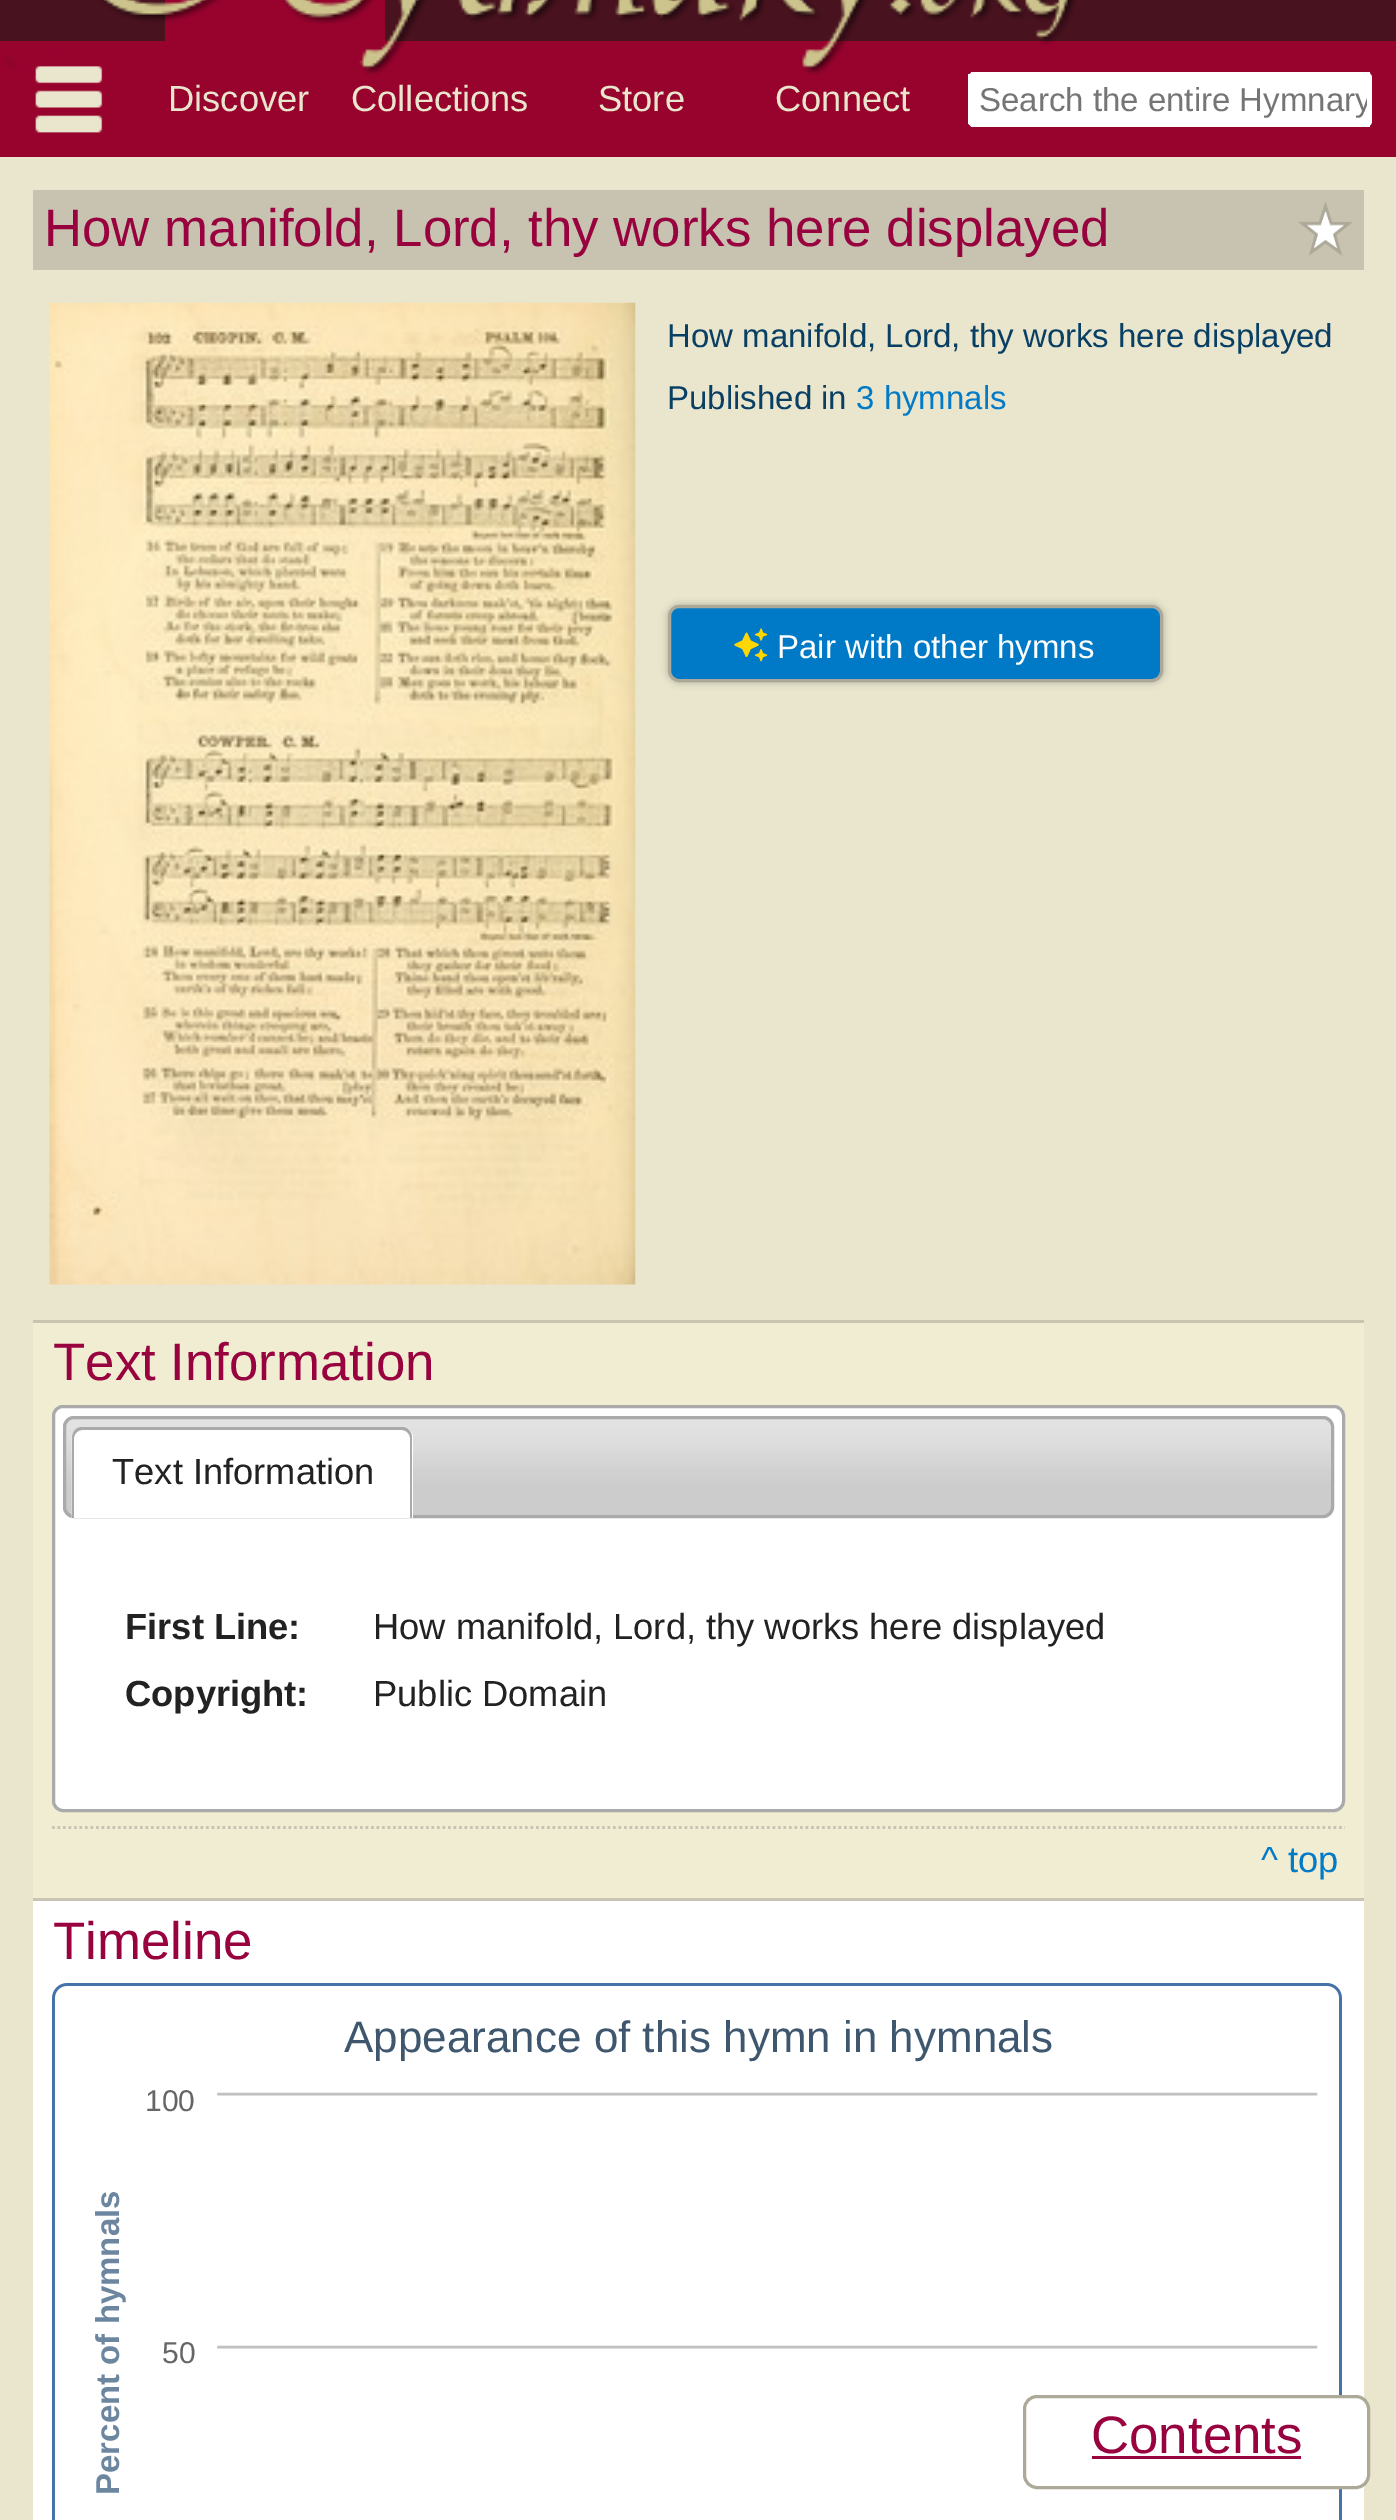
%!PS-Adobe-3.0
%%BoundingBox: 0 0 1396 2520
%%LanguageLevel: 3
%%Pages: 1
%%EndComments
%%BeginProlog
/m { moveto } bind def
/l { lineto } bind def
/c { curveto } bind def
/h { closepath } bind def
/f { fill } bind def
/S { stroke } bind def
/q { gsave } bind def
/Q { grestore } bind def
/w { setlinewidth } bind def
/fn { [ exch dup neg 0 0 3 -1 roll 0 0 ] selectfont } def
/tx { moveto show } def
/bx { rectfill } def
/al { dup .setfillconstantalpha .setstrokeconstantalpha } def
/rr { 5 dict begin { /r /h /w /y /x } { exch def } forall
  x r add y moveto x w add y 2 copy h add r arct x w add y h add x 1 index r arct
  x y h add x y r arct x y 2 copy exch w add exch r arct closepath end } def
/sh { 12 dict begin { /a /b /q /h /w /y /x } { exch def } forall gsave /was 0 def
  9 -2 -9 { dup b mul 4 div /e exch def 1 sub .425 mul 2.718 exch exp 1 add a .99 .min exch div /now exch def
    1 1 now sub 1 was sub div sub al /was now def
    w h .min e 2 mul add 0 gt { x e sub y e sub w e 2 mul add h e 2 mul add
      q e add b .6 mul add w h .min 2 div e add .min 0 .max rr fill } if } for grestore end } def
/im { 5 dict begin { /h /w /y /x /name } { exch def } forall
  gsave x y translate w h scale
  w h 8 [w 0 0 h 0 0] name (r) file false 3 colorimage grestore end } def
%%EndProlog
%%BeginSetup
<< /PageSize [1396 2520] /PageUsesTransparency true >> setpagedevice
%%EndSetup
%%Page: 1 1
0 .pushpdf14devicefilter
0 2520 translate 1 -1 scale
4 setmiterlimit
0.286 0.071 0.122 setrgbcolor
0 0 1396 2520 bx
0.596 0.012 0.18 setrgbcolor
165 0 220 41 bx
0 41 1396 116 bx
1 setgray
968 72 404 55 6 rr f
971 72 399 2 bx
968 74 2 50 bx
(image0.raw) 3 0 1073 75 im
(image1.raw) 35 66 68 67 im
/LiberationSans-Regular 36.3 fn
0.914 0.902 0.804 setrgbcolor
(Discover) 168 111 tx
(Collections) 351 111 tx
(Store) 598 111 tx
(Connect) 775 111 tx
1 setgray
971 125 399 2 bx
q
979 80 388 38 rectclip
/LiberationSans-Regular 33 fn
0.459 setgray
(Search the entire Hymnary) 979 111 tx
Q
0.914 0.902 0.804 setrgbcolor
0 157 1396 2363 bx
0.784 0.765 0.69 setrgbcolor
33 190 1331 80 bx
/LiberationSans-Regular 52.8 fn
0.596 0.008 0.243 setrgbcolor
(How manifold, Lord, thy works here displayed) 44 246 tx
(image2.raw) 1298 202 55 54 im
(image3.raw) 49 302 587 983 im
/LiberationSans-Regular 33 fn
0.039 0.247 0.392 setrgbcolor
(How manifold, Lord, thy works here displayed) 667 347 tx
(Published in) 667 409 tx
0.008 0.478 0.776 setrgbcolor
(3 hymnals) 856 409 tx
0.678 0.663 0.6 setrgbcolor
668 605 495 77 11 4 1 sh
0 0.478 0.776 setrgbcolor
669.5 606.5 492 74 9.5 rr q f Q
0.678 0.663 0.6 setrgbcolor
3 w
S
(image4.raw) 734 628 34 34 im
1 setgray
(Pair with other hymns) 777 658 tx
0.941 0.929 0.827 setrgbcolor
33 1323 1331 575 bx
0.788 0.769 0.694 setrgbcolor
33 1320 1331 3 bx
/LiberationSans-Regular 52.8 fn
0.596 0.008 0.243 setrgbcolor
(Text Information) 53 1380 tx
1 setgray
53.5 1406.5 1290 404 9.5 rr q f Q
0.667 setgray
S
(image5.raw) 63 1416 1271 102 im
64.5 1417.5 1268 99 9.5 rr S
1 setgray
83 1427 m 402 1427 l 408 1427 413 1432 413 1438 c 413 1518 l 72 1518 l 72 1438 l 72 1432 77 1427 83 1427 c h f
(image6.raw) 71 1428 7 90 im
0.667 setgray
82 1427 m 402 1427 l 408 1427 412 1432 412 1438 c 412 1518 l 72 1518 l 72 1438 l 72 1432 76 1427 82 1427 c h 82 1430 m 402 1430 l 406 1430 410 1434 410 1438 c 410 1518 l 74 1518 l 74 1438 l 74 1434 78 1430 82 1430 c h eofill
/LiberationSans-Regular 36.3 fn
0.133 setgray
(Text Information) 112 1484 tx
/LiberationSans-Bold 36.3 fn
(First Line:) 125 1639 tx
/LiberationSans-Regular 36.3 fn
(How manifold, Lord, thy works here displayed) 373 1639 tx
/LiberationSans-Bold 36.3 fn
(Copyright:) 125 1706 tx
/LiberationSans-Regular 36.3 fn
(Public Domain) 373 1706 tx
0.788 0.769 0.694 setrgbcolor
2.8 w
[2.75 2.75] 0 setdash
52 1827.5 m 1345 1827.5 l S
0.008 0.478 0.776 setrgbcolor
(^ top) 1261 1872 tx
1 setgray
33 1901 1331 619 bx
0.788 0.769 0.694 setrgbcolor
33 1898 1331 3 bx
/LiberationSans-Regular 52.8 fn
0.596 0.008 0.243 setrgbcolor
(Timeline) 53 1959 tx
(image7.raw) 52 1983 1290 537 im
/LiberationSans-Regular 44 fn
0.243 0.341 0.435 setrgbcolor
(Appearance of this hymn in hymnals) 344 2052 tx
/LiberationSans-Regular 30 fn
0.4 setgray
(100) 145 2111 tx
/LiberationSans-Bold 33 fn
0.427 0.525 0.624 setrgbcolor
q 119 2495 translate -90 rotate 0 0 m (Percent of hymnals) show Q
/LiberationSans-Regular 30 fn
0.4 setgray
(50) 162 2363 tx
1 setgray
1024.5 2396.5 344 91 12.5 rr q f Q
0.678 0.663 0.6 setrgbcolor
3 w
[] 0 setdash
S
/LiberationSans-Regular 52.8 fn
0.596 0.008 0.243 setrgbcolor
(Contents) 1091 2453 tx
1092 2456 209 3 bx
.poppdf14devicefilter showpage
%%EOF
